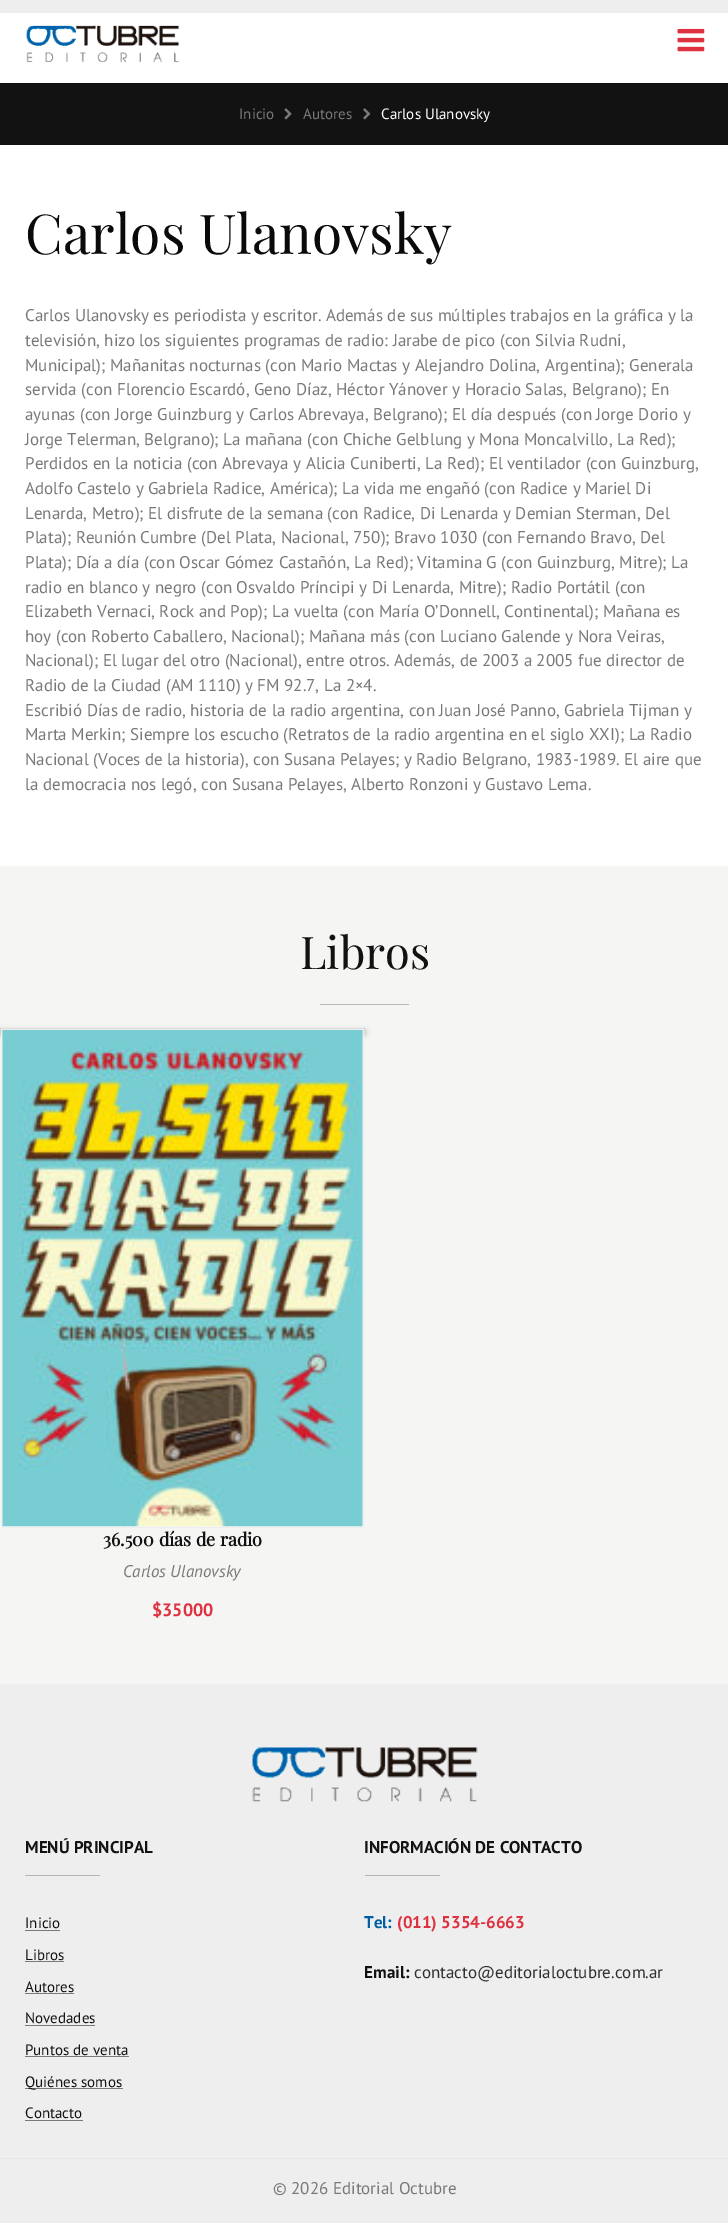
%!PS-Adobe-3.0
%%BoundingBox: 0 0 728 2228
%%LanguageLevel: 3
%%Pages: 1
%%EndComments
%%BeginProlog
/fn { [ exch dup neg 0 0 3 -1 roll 0 0 ] selectfont } def
/tx { moveto show } def
/bx { rectfill } def
/al { dup .setfillconstantalpha .setstrokeconstantalpha } def
/rr { 5 dict begin { /r /h /w /y /x } { exch def } forall
  x r add y moveto x w add y 2 copy h add r arct x w add y h add x 1 index r arct
  x y h add x y r arct x y 2 copy exch w add exch r arct closepath end } def
/sh { 12 dict begin { /a /b /q /h /w /y /x } { exch def } forall gsave /was 0 def
  9 -2 -9 { dup b mul 4 div /e exch def 1 sub .425 mul 2.718 exch exp 1 add a .99 .min exch div /now exch def
    1 1 now sub 1 was sub div sub al /was now def
    w h .min e 2 mul add 0 gt { x e sub y e sub w e 2 mul add h e 2 mul add
      q e add b .6 mul add w h .min 2 div e add .min 0 .max rr fill } if } for grestore end } def
/im { 5 dict begin { /h /w /y /x /name } { exch def } forall
  gsave x y translate w h scale
  w h 8 [w 0 0 h 0 0] name (r) file false 3 colorimage grestore end } def
%%EndProlog
%%BeginSetup
<< /PageSize [728 2228] /PageUsesTransparency true >> setpagedevice
%%EndSetup
%%Page: 1 1
0 .pushpdf14devicefilter
0 2228 translate 1 -1 scale
4 setmiterlimit
1 setgray
0 0 728 2228 bx
0.933 setgray
0 0 728 13 bx
(image0.raw) 26 25 154 38 im
(image1.raw) 677 28 28 24 im
0.071 setgray
0 83 728 62 bx
/PTSans-Regular 15 fn
0.475 setgray
(Inicio) 239 119 tx
(image2.raw) 284 108 8 12 im
(Autores) 303 119 tx
(image3.raw) 363 108 8 12 im
1 setgray
(Carlos Ulanovsky) 381 119 tx
/PlayfairDisplay-Regular 55 fn
0.039 setgray
(Carlos Ulanovsky) 25 254 tx
/PTSans-Regular 17 fn
0.475 setgray
(Carlos Ulanovsky es periodista y escritor. Además de sus múltiples trabajos en la gráfica y la) 25 321 tx
(televisión, hizo los siguientes programas de radio: Jarabe de pico \(con Silvia Rudni,) 25 346 tx
(Municipal\); Mañanitas nocturnas \(con Mario Mactas y Alejandro Dolina, Argentina\); Generala) 25 371 tx
(servida \(con Florencio Escardó, Geno Díaz, Héctor Yánover y Horacio Salas, Belgrano\); En) 25 395 tx
(ayunas \(con Jorge Guinzburg y Carlos Abrevaya, Belgrano\); El día después \(con Jorge Dorio y) 25 420 tx
(Jorge Telerman, Belgrano\); La mañana \(con Chiche Gelblung y Mona Moncalvillo, La Red\);) 25 445 tx
(Perdidos en la noticia \(con Abrevaya y Alicia Cuniberti, La Red\); El ventilador \(con Guinzburg,) 25 469 tx
(Adolfo Castelo y Gabriela Radice, América\); La vida me engañó \(con Radice y Mariel Di) 25 494 tx
(Lenarda, Metro\); El disfrute de la semana \(con Radice, Di Lenarda y Demian Sterman, Del) 25 519 tx
(Plata\); Reunión Cumbre \(Del Plata, Nacional, 750\); Bravo 1030 \(con Fernando Bravo, Del) 25 543 tx
(Plata\); Día a día \(con Oscar Gómez Castañón, La Red\); Vitamina G \(con Guinzburg, Mitre\); La) 25 568 tx
(radio en blanco y negro \(con Osvaldo Príncipi y Di Lenarda, Mitre\); Radio Portátil \(con) 25 593 tx
(Elizabeth Vernaci, Rock and Pop\); La vuelta \(con María O’Donnell, Continental\); Mañana es) 25 617 tx
(hoy \(con Roberto Caballero, Nacional\); Mañana más \(con Luciano Galende y Nora Veiras,) 25 642 tx
(Nacional\); El lugar del otro \(Nacional\), entre otros. Además, de 2003 a 2005 fue director de) 25 666 tx
(Radio de la Ciudad \(AM 1110\) y FM 92.7, La 2×4.) 25 691 tx
(Escribió Días de radio, historia de la radio argentina, con Juan José Panno, Gabriela Tijman y) 25 716 tx
(Marta Merkin; Siempre los escucho \(Retratos de la radio argentina en el siglo XXI\); La Radio) 25 740 tx
(Nacional \(Voces de la historia\), con Susana Pelayes; y Radio Belgrano, 1983-1989. El aire que) 25 765 tx
(la democracia nos legó, con Susana Pelayes, Alberto Ronzoni y Gustavo Lema.) 25 790 tx
0.961 0.961 0.957 setrgbcolor
0 866 728 818 bx
/PlayfairDisplay-Regular 45 fn
0.071 setgray
(Libros) 300 969 tx
0.718 setgray
320 1004 89 1 bx
0.678 0.678 0.671 setrgbcolor
0 1031 365 3 0 3 1 sh
0.867 setgray
0 1028 365 1 bx
0.808 setgray
364 1028 1 3 bx
0 1028 1 3 bx
0.933 setgray
1.5 1029.5 362 498 rectstroke
(image4.raw) 2 1030 361 497 im
/PlayfairDisplay-Bold 18 fn
0.071 setgray
(36.500 días de radio) 103 1546 tx
/PTSans-Italic 17 fn
0.475 setgray
(Carlos Ulanovsky) 123 1577 tx
/PTSans-Bold 18 fn
0.871 0.196 0.255 setrgbcolor
($35000) 152 1616 tx
0.933 setgray
0 1684 728 539 bx
(image5.raw) 252 1747 226 55 im
/PTSans-Bold 17 fn
0.071 setgray
(MENÚ PRINCIPAL) 25 1853 tx
0.706 setgray
25 1875 75 1 bx
/PTSans-Regular 15 fn
0.071 setgray
(Inicio) 25 1928 tx
0.475 setgray
25 1930 35 1 bx
0.071 setgray
(Libros) 25 1960 tx
0.475 setgray
25 1961 39 1 bx
0.071 setgray
(Autores) 25 1992 tx
0.475 setgray
25 1993 49 1 bx
0.071 setgray
(Novedades) 25 2023 tx
0.475 setgray
25 2025 70 1 bx
0.071 setgray
(Puntos de venta) 25 2055 tx
0.475 setgray
25 2056 104 1 bx
25 2088 98 1 bx
0.071 setgray
(Quiénes somos) 25 2087 tx
(Contacto) 25 2118 tx
0.475 setgray
25 2120 58 1 bx
/PTSans-Bold 17 fn
0.071 setgray
(INFORMACIÓN DE CONTACTO) 364 1853 tx
0.706 setgray
365 1875 75 1 bx
0 0.369 0.647 setrgbcolor
(Tel:) 364 1928 tx
0.871 0.196 0.255 setrgbcolor
(\(011\) 5354-6663) 397 1928 tx
0.071 setgray
(Email:) 364 1978 tx
/PTSans-Regular 17 fn
0.188 setgray
(contacto@editorialoctubre.com.ar) 414 1978 tx
0.894 0.906 0.91 setrgbcolor
0 2158 728 1 bx
0.475 setgray
(© 2026 Editorial Octubre) 273 2194 tx
.poppdf14devicefilter showpage
%%EOF
